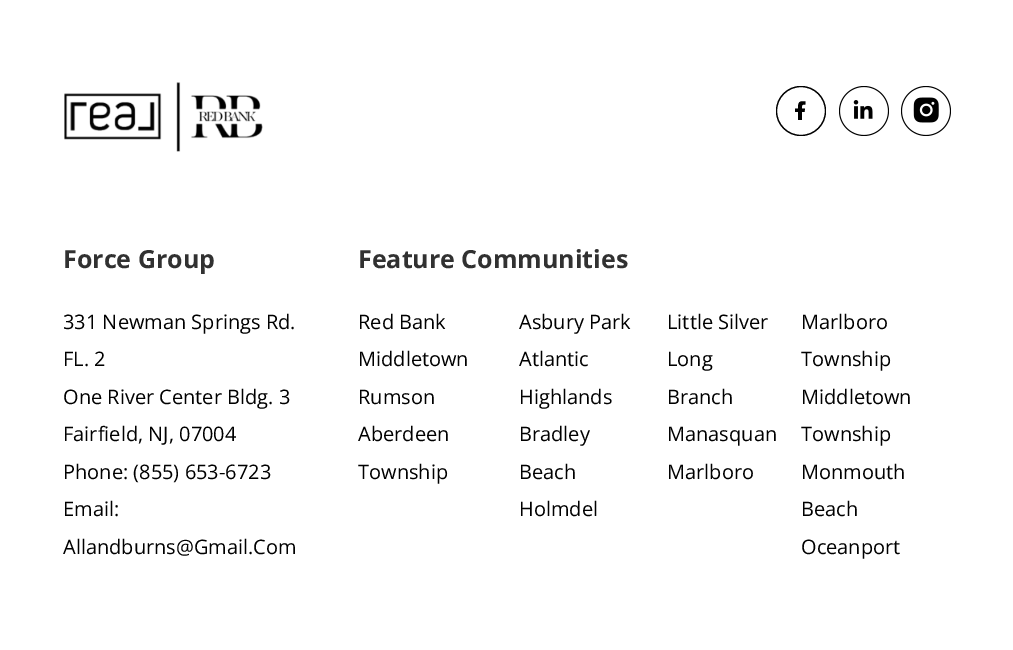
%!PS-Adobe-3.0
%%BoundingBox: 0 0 1013 650
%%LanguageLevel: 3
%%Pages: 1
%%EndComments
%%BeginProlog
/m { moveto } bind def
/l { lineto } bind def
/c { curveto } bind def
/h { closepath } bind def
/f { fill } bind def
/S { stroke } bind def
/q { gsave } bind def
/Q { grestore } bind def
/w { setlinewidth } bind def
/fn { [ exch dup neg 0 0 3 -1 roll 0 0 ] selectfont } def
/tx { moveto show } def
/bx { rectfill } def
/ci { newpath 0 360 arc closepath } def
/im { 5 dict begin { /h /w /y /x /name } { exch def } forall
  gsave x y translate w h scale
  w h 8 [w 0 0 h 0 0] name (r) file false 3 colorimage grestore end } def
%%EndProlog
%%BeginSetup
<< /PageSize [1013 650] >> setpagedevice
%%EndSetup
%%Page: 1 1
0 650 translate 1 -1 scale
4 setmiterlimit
1 setgray
0 0 1013 650 bx
(image0.raw) 64 82 199 70 im
q
776 86 50 50 rectclip
0 setgray
1.2 w
801 111 24.5 ci S
Q
0 setgray
804.5 112 m 805 108.5 l 802 108.5 l 802 105 801.5 104.5 805.5 104.5 c 805.5 101.5 l 799 100.5 798 102.5 798 108.5 c 795 108.5 l 795 112 l 798 112 l 798 120 l 802 120 l 802 112 l h f
(image1.raw) 839 86 50 50 im
(image2.raw) 901 86 50 50 im
/OpenSans-Bold 25 fn
0.192 setgray
(Force Group) 63 268 tx
/OpenSans-Regular 20 fn
0 setgray
(331 Newman Springs Rd.) 63 329 tx
(FL. 2) 63 366 tx
(One River Center Bldg. 3) 63 404 tx
(Fairfield, NJ, 07004) 63 441 tx
(Phone: \(855\) 653-6723) 63 479 tx
(Email:) 63 516 tx
(Allandburns@Gmail.Com) 63 554 tx
/OpenSans-Bold 25 fn
0.192 setgray
(Feature Communities) 358 268 tx
/OpenSans-Regular 20 fn
0 setgray
(Red Bank) 358 329 tx
(Middletown) 358 366 tx
(Rumson) 358 404 tx
(Aberdeen) 358 441 tx
(Township) 358 479 tx
(Asbury Park) 519 329 tx
(Atlantic) 519 366 tx
(Highlands) 519 404 tx
(Bradley) 519 441 tx
(Beach) 519 479 tx
(Holmdel) 519 516 tx
(Little Silver) 667 329 tx
(Long) 667 366 tx
(Branch) 667 404 tx
(Manasquan) 667 441 tx
(Marlboro) 667 479 tx
(Marlboro) 801 329 tx
(Township) 801 366 tx
(Middletown) 801 404 tx
(Township) 801 441 tx
(Monmouth) 801 479 tx
(Beach) 801 516 tx
(Oceanport) 801 554 tx
showpage
%%EOF
